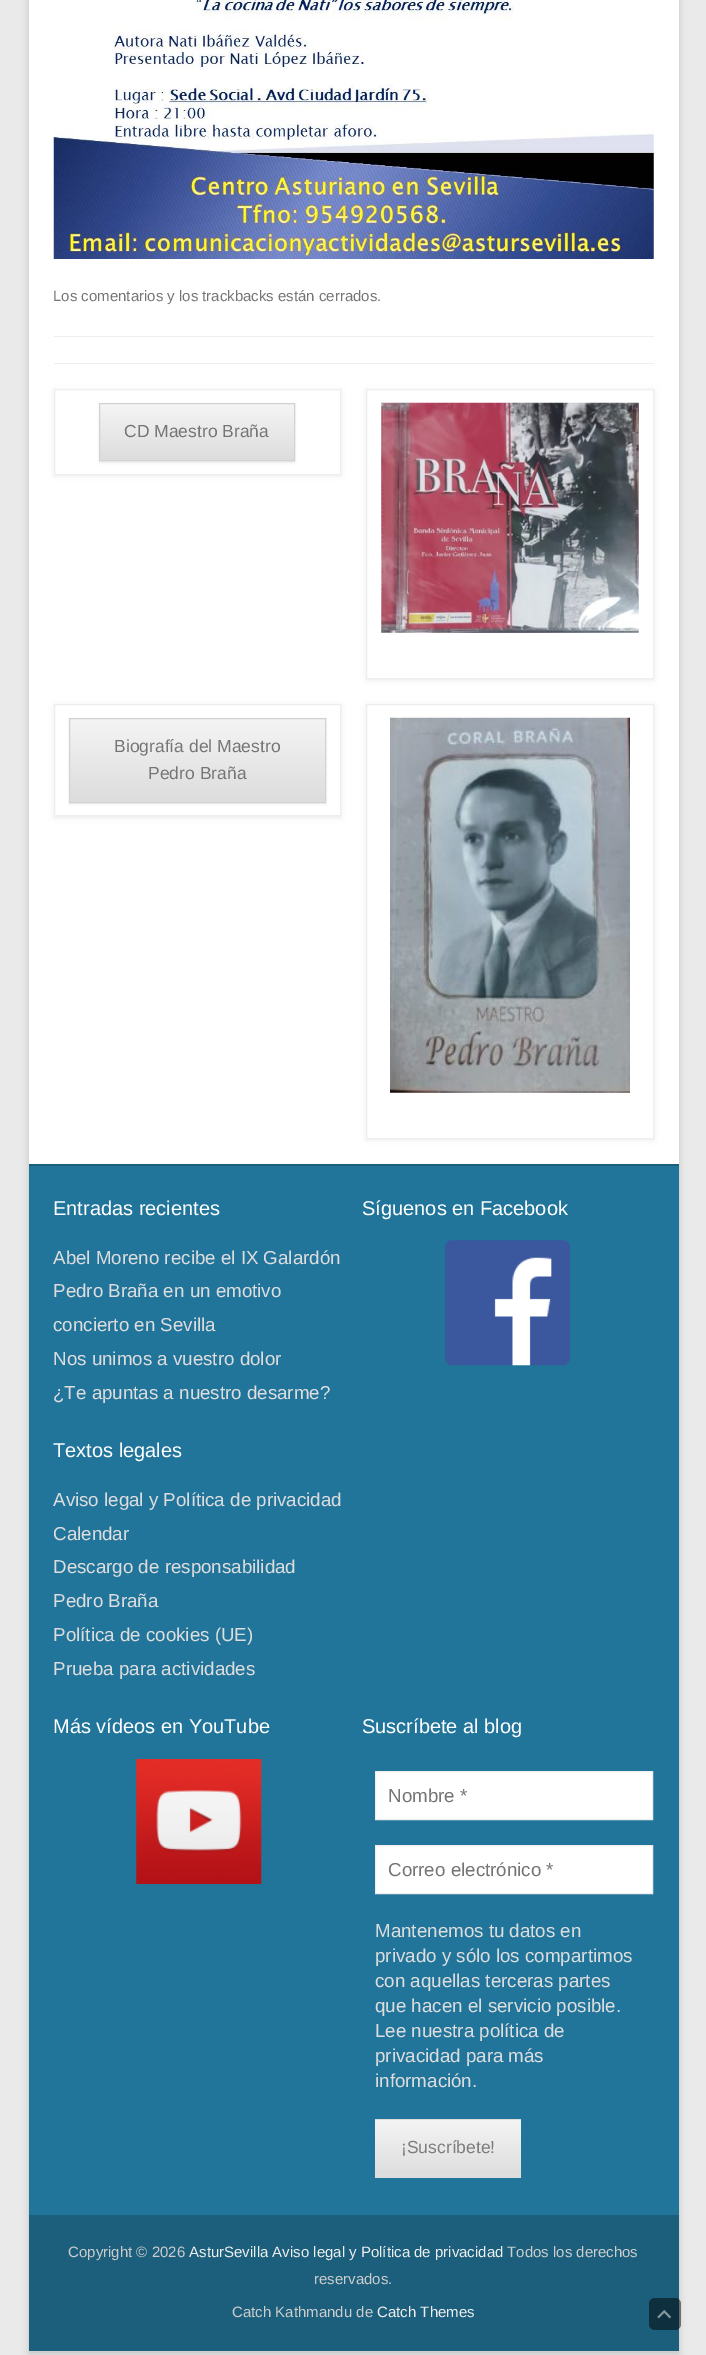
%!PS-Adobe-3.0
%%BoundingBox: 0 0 706 2355
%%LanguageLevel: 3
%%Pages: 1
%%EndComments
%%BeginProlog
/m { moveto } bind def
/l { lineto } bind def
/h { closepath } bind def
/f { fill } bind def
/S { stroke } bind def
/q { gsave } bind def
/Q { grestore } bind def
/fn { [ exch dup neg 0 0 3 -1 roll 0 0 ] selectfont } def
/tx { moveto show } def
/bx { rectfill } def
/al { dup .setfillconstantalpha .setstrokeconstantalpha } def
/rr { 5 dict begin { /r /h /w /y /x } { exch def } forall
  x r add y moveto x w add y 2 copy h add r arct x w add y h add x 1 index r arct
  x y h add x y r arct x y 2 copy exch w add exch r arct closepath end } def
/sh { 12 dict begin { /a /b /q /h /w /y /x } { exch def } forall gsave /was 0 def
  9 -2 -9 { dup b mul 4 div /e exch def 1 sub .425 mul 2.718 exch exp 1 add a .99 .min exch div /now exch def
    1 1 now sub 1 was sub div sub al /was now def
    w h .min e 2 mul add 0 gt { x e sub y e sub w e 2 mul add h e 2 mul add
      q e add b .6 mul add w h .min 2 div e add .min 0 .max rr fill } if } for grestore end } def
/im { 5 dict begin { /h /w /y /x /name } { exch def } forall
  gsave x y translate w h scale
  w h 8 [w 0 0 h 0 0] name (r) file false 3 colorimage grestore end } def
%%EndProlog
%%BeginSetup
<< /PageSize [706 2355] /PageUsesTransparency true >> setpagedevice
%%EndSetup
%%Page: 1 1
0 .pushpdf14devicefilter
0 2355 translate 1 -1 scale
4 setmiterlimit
0.918 setgray
0 0 706 2355 bx
0.392 setgray
29 -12 650 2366 0 4 0.3 sh
1 setgray
29 0 650 1164 bx
0.933 setgray
54 363 600 1 bx
54 336 600 1 bx
(image0.raw) 53 0 601 259 im
/LiberationSans-Regular 15 fn
0.459 setgray
(Los comentarios y los trackbacks están cerrados.) 53 301 tx
q
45 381 m 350 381 l 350 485 l 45 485 l h 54 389 m 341 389 l 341 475 l 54 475 l h eoclip newpath
0 setgray
54 390 287 86 0 2.5 0.07 sh
Q
0.933 setgray
54.5 389.5 286 85 rectstroke
0.251 setgray
99 404 196 59 0 1 0.1 sh
q 100 405 m 294 405 l 294 460 l 100 460 l h clip newpath
<< /ShadingType 2 /ColorSpace /DeviceRGB /Coords [197 404 197 460] /Extend [true true] /Function << /FunctionType 2 /Domain [0 1] /C0 [0.957 0.957 0.957] /C1 [0.867 0.867 0.867] /N 1 >> >> shfill Q
0.824 setgray
99.5 403.5 195 57 rectstroke
/LiberationSans-Regular 17.5 fn
0.459 setgray
(CD Maestro Braña) 124 437 tx
q
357 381 m 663 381 l 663 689 l 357 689 l h 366 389 m 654 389 l 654 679 l 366 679 l h eoclip newpath
0 setgray
366 390 288 290 0 2.5 0.07 sh
Q
0.933 setgray
366.5 389.5 287 289 rectstroke
(image1.raw) 381 402 258 231 im
q
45 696 m 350 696 l 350 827 l 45 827 l h 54 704 m 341 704 l 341 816 l 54 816 l h eoclip newpath
0 setgray
54 705 287 113 0 2.5 0.07 sh
Q
54.5 704.5 286 111 rectstroke
0.251 setgray
69 719 257 85 0 1 0.1 sh
0.867 setgray
70 801 255 1 bx
q 70 720 m 325 720 l 325 801 l 70 801 l h clip newpath
<< /ShadingType 2 /ColorSpace /DeviceRGB /Coords [198 719 198 801] /Extend [true true] /Function << /FunctionType 2 /Domain [0 1] /C0 [0.957 0.957 0.957] /C1 [0.867 0.867 0.867] /N 1 >> >> shfill Q
0.824 setgray
69.5 718.5 256 84 rectstroke
0.459 setgray
(Biografía del Maestro) 114 752 tx
(Pedro Braña) 148 779 tx
q
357 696 m 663 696 l 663 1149 l 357 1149 l h 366 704 m 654 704 l 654 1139 l 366 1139 l h eoclip newpath
0 setgray
366 705 288 435 0 2.5 0.07 sh
Q
0.933 setgray
366.5 704.5 287 434 rectstroke
(image2.raw) 390 717 240 376 im
0.106 0.373 0.49 setrgbcolor
29 1164 650 2 bx
0.129 0.459 0.608 setrgbcolor
29 1166 650 1049 bx
/LiberationSans-Regular 20 fn
1 setgray
(Entradas recientes) 53 1215 tx
/LiberationSans-Regular 18.75 fn
0.867 setgray
(Abel Moreno recibe el IX Galardón) 53 1264 tx
(Pedro Braña en un emotivo) 53 1297 tx
(concierto en Sevilla) 53 1331 tx
(Nos unimos a vuestro dolor) 53 1365 tx
(¿Te apuntas a nuestro desarme?) 53 1399 tx
/LiberationSans-Regular 20 fn
1 setgray
(Textos legales) 53 1457 tx
/LiberationSans-Regular 18.75 fn
0.867 setgray
(Aviso legal y Política de privacidad) 53 1506 tx
(Calendar) 53 1540 tx
(Descargo de responsabilidad) 53 1573 tx
(Pedro Braña) 53 1607 tx
(Política de cookies \(UE\)) 53 1641 tx
(Prueba para actividades) 53 1675 tx
/LiberationSans-Regular 20 fn
1 setgray
(Síguenos en Facebook) 362 1215 tx
(image3.raw) 445 1240 125 126 im
(Más vídeos en YouTube) 53 1733 tx
(image4.raw) 136 1759 126 125 im
(Suscríbete al blog) 362 1733 tx
375.5 1771.5 m 652.5 1771.5 l 652.5 1819.5 l 375.5 1819.5 l h q f Q
0.933 setgray
S
/LiberationSans-Regular 18.75 fn
0.459 setgray
(Nombre *) 388 1802 tx
1 setgray
375.5 1845.5 m 652.5 1845.5 l 652.5 1893.5 l 375.5 1893.5 l h q f Q
0.933 setgray
S
0.459 setgray
(Correo electrónico *) 388 1876 tx
0.867 setgray
(Mantenemos tu datos en) 375 1937 tx
(privado y sólo los compartimos) 375 1962 tx
(con aquellas terceras partes) 375 1987 tx
(que hacen el servicio posible.) 375 2012 tx
(Lee nuestra política de) 375 2037 tx
(privacidad para más) 375 2062 tx
(información.) 375 2087 tx
375 2119 146 59 bx
q 375 2120 m 521 2120 l 521 2170 l 375 2170 l h clip newpath
<< /ShadingType 2 /ColorSpace /DeviceRGB /Coords [448 2120 448 2176] /Extend [true true] /Function << /FunctionType 2 /Domain [0 1] /C0 [0.957 0.957 0.957] /C1 [0.867 0.867 0.867] /N 1 >> >> shfill Q
/LiberationSans-Regular 17.5 fn
0.486 setgray
(¡Suscríbete!) 401 2153 tx
0.106 0.373 0.49 setrgbcolor
29 2215 650 136 bx
/LiberationSans-Regular 15 fn
0.8 setgray
(Copyright © 2026) 68 2257 tx
0.933 setgray
(AsturSevilla Aviso legal y Política de privacidad) 189 2257 tx
0.8 setgray
(Todos los derechos) 507 2257 tx
(reservados.) 314 2284 tx
(Catch Kathmandu de) 232 2317 tx
0.933 setgray
(Catch Themes) 377 2317 tx
0.5 al
0 setgray
649 2298 32 32 6 rr f
1 al
(image5.raw) 657 2310 15 9 im
.poppdf14devicefilter showpage
%%EOF
